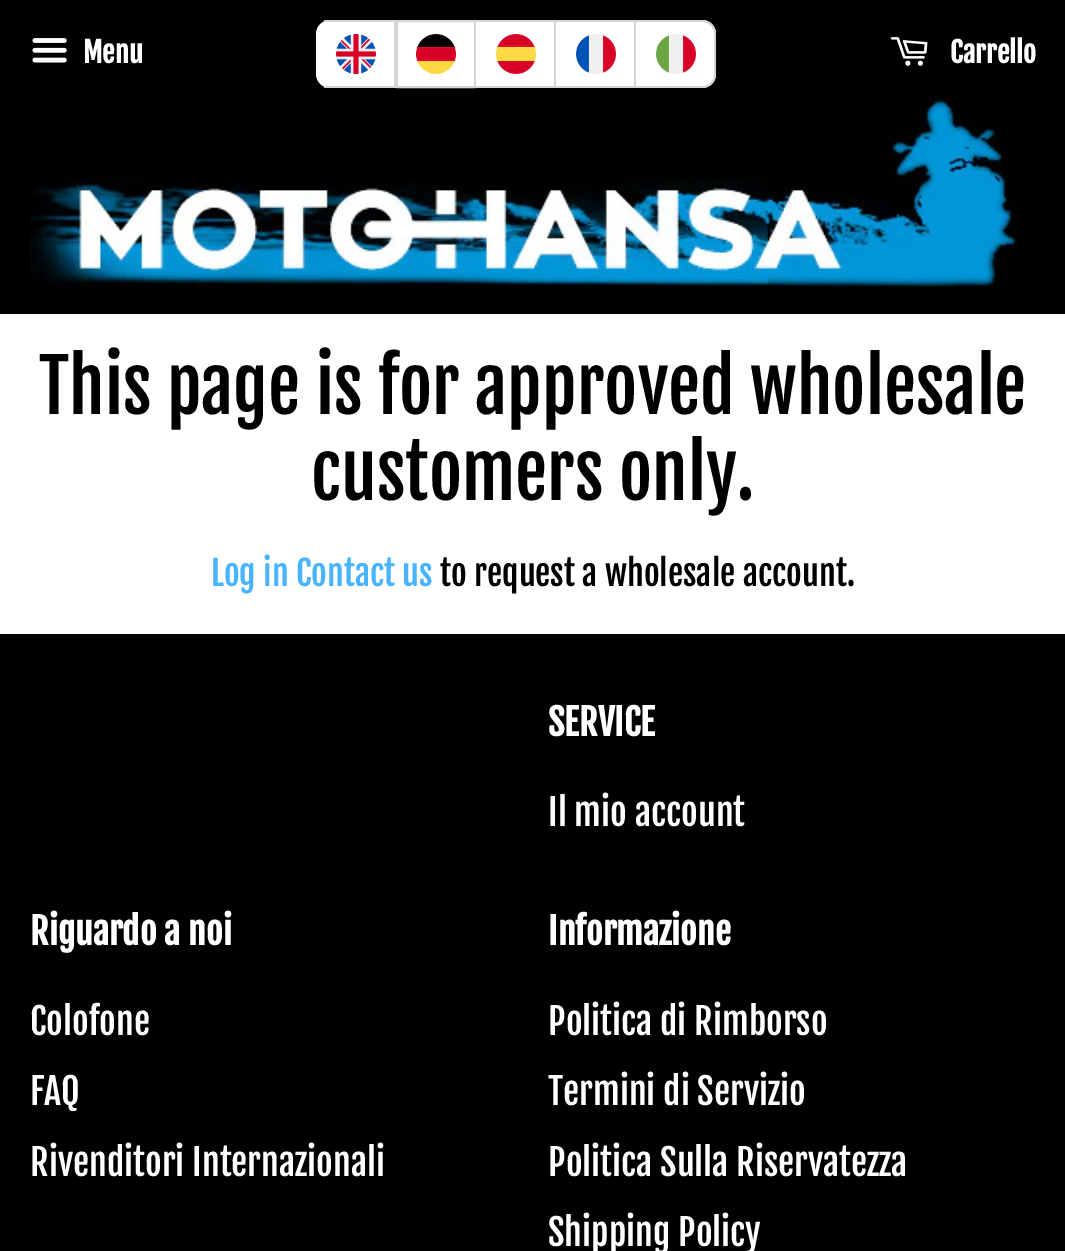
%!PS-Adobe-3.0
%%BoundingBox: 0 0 1065 1251
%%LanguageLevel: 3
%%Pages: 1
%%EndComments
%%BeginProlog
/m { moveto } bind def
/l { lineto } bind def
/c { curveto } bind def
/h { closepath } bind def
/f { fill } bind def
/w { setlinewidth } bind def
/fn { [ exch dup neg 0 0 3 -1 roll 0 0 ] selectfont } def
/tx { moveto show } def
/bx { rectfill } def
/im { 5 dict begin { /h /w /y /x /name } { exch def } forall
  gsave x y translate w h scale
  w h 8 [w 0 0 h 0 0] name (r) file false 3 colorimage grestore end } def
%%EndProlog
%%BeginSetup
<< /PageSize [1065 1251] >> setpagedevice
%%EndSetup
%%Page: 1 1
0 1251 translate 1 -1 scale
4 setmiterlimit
1 setgray
0 0 1065 1251 bx
0 setgray
0 0 1065 314 bx
(image0.raw) 32 38 35 25 im
/FjallaOne-Bold 28 fn
1 setgray
(Menu) 83 63 tx
330 20 m 396 20 l 396 88 l 330 88 l 322.5 88 316 81.5 316 74 c 316 34 l 316 26.5 322.5 20 330 20 c h f
(image1.raw) 336 34 40 40 im
0.839 setgray
324 20 72 2 bx
394 20 2 68 bx
324 86 72 2 bx
1 setgray
398 22 76 64 bx
(image2.raw) 416 34 40 40 im
0.839 setgray
2 w
397 21 78 66 rectstroke
1 setgray
476 22 78 64 bx
(image3.raw) 496 34 40 40 im
0.839 setgray
476 20 160 2 bx
554 20 2 68 bx
476 86 80 2 bx
1 setgray
556 22 78 64 bx
(image4.raw) 576 34 40 40 im
0.839 setgray
634 20 2 68 bx
556 86 80 2 bx
1 setgray
636 20 m 702 20 l 709.5 20 716 26.5 716 34 c 716 74 l 716 81.5 709.5 88 702 88 c 636 88 l h f
(image5.raw) 656 34 40 40 im
0.839 setgray
636 20 m 702 20 l 710 20 716 26 716 34 c 716 74 l 716 82 710 88 702 88 c 636 88 l h 636 22 m 702 22 l 709 22 714 27 714 34 c 714 74 l 714 81 709 86 702 86 c 636 86 l h eofill
(image6.raw) 890 37 38 29 im
1 setgray
(Carrello) 950 63 tx
(image7.raw) 30 96 990 192 im
/FjallaOne-Regular 72 fn
0 setgray
(This page is for approved wholesale) 39 414 tx
(customers only.) 311 500 tx
/FjallaOne-Regular 34 fn
0.282 0.702 1 setrgbcolor
(Log in Contact us) 211 586 tx
0 setgray
(to request a wholesale account.) 440 586 tx
0 634 1065 617 bx
/FjallaOne-Bold 36 fn
1 setgray
(SERVICE) 548 736 tx
/FjallaOne-Regular 36.1 fn
(Il mio account) 548 826 tx
/FjallaOne-Bold 36 fn
(Riguardo a noi) 30 945 tx
/FjallaOne-Regular 36.1 fn
(Colofone) 30 1035 tx
(FAQ) 30 1105 tx
(Rivenditori Internazionali) 30 1176 tx
/FjallaOne-Bold 36 fn
(Informazione) 548 945 tx
/FjallaOne-Regular 36.1 fn
(Politica di Rimborso) 548 1035 tx
(Termini di Servizio) 548 1105 tx
(Politica Sulla Riservatezza) 548 1176 tx
(Shipping Policy) 548 1246 tx
showpage
%%EOF
